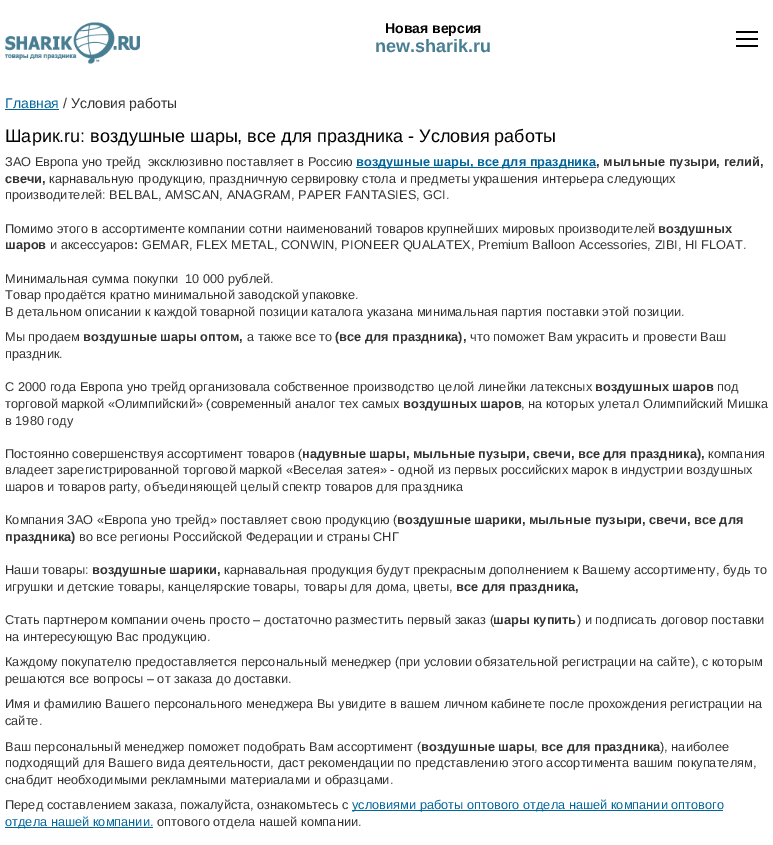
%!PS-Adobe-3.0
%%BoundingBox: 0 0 773 845
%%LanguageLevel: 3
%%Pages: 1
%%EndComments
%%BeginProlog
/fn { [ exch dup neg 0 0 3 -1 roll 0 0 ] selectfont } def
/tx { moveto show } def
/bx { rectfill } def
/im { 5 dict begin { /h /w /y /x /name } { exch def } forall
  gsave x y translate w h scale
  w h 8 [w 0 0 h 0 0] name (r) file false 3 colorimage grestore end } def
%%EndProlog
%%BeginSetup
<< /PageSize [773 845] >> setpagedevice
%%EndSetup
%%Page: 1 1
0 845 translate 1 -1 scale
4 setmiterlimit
1 setgray
0 0 773 845 bx
(image0.raw) 5 22 135 42 im
/LiberationSans-Bold 14 fn
0 setgray
(Новая версия) 385 33 tx
/LiberationSans-Bold 18 fn
0.278 0.494 0.573 setrgbcolor
(new.sharik.ru) 375 52 tx
0 setgray
736 31 22 2 bx
736 38 22 2 bx
736 45 22 2 bx
/LiberationSans-Regular 14 fn
0 0.4 0.612 setrgbcolor
(Главная) 5 108 tx
5 109 54 1 bx
0.2 setgray
(/ Условия работы) 63 108 tx
/LiberationSans-Regular 18 fn
0 setgray
(Шарик.ru: воздушные шары, все для праздника - Условия работы) 5 142 tx
/LiberationSans-Regular 12.78 fn
0.2 setgray
(ЗАО Европа уно трейд  эксклюзивно поставляет в Россию) 5 166 tx
0 0.4 0.612 setrgbcolor
356 167 240 1 bx
/LiberationSans-Bold 12.78 fn
(воздушные шары, все для праздника) 356 166 tx
0.2 setgray
(, мыльные пузыри, гелий,) 596 166 tx
(свечи,) 5 183 tx
/LiberationSans-Regular 12.78 fn
(карнавальную продукцию, праздничную сервировку стола и предметы украшения интерьера следующих) 49 183 tx
(производителей: BELBAL, AMSCAN, ANAGRAM, PAPER FANTASIES, GCI.) 5 199 tx
(Помимо этого в ассортименте компании сотни наименований товаров крупнейших мировых производителей) 5 233 tx
/LiberationSans-Bold 12.78 fn
(воздушных) 658 233 tx
(шаров) 5 249 tx
/LiberationSans-Regular 12.78 fn
(и аксессуаров) 50 249 tx
/LiberationSans-Bold 12.78 fn
(:) 134 249 tx
/LiberationSans-Regular 12.78 fn
(GEMAR, FLEX METAL, CONWIN, PIONEER QUALATEX, Premium Balloon Accessories, ZIBI, HI FLOAT.) 142 249 tx
(Минимальная сумма покупки  10 000 рублей.) 5 283 tx
(Товар продаётся кратно минимальной заводской упаковке.) 5 299 tx
(В детальном описании к каждой товарной позиции каталога указана минимальная партия поставки этой позиции.) 5 316 tx
(Мы продаем) 5 341 tx
/LiberationSans-Bold 12.78 fn
(воздушные шары оптом,) 83 341 tx
/LiberationSans-Regular 12.78 fn
(а также все то) 247 341 tx
/LiberationSans-Bold 12.78 fn
(\(все для праздника\),) 335 341 tx
/LiberationSans-Regular 12.78 fn
(что поможет Вам украсить и провести Ваш) 470 341 tx
(праздник.) 5 358 tx
(С 2000 года Европа уно трейд организовала собственное производство целой линейки латексных) 5 391 tx
/LiberationSans-Bold 12.78 fn
(воздушных шаров) 595 391 tx
/LiberationSans-Regular 12.78 fn
(под) 717 391 tx
(торговой маркой «Олимпийский» \(современный аналог тех самых) 5 408 tx
/LiberationSans-Bold 12.78 fn
(воздушных шаров) 403 408 tx
/LiberationSans-Regular 12.78 fn
(, на которых улетал Олимпийский Мишка) 521 408 tx
(в 1980 году) 5 425 tx
(Постоянно совершенствуя ассортимент товаров \() 5 458 tx
/LiberationSans-Bold 12.78 fn
(надувные шары, мыльные пузыри, свечи, все для праздника\),) 302 458 tx
/LiberationSans-Regular 12.78 fn
(компания) 708 458 tx
(владеет зарегистрированной торговой маркой «Веселая затея» - одной из первых российских марок в индустрии воздушных) 5 474 tx
(шаров и товаров party, объединяющей целый спектр товаров для праздника) 5 491 tx
(Компания ЗАО «Европа уно трейд» поставляет свою продукцию \() 5 524 tx
/LiberationSans-Bold 12.78 fn
(воздушные шарики, мыльные пузыри, свечи, все для) 397 524 tx
(праздника\)) 5 541 tx
/LiberationSans-Regular 12.78 fn
(во все регионы Российской Федерации и страны СНГ) 79 541 tx
(Наши товары:) 5 574 tx
/LiberationSans-Bold 12.78 fn
(воздушные шарики,) 92 574 tx
/LiberationSans-Regular 12.78 fn
(карнавальная продукция будут прекрасным дополнением к Вашему ассортименту, будь то) 224 574 tx
(игрушки и детские товары, канцелярские товары, товары для дома, цветы,) 5 591 tx
/LiberationSans-Bold 12.78 fn
(все для праздника,) 456 591 tx
/LiberationSans-Regular 12.78 fn
(Стать партнером компании очень просто – достаточно разместить первый заказ \() 5 624 tx
/LiberationSans-Bold 12.78 fn
(шары купить) 493 624 tx
/LiberationSans-Regular 12.78 fn
(\) и подписать договор поставки) 577 624 tx
(на интересующую Вас продукцию.) 5 641 tx
(Каждому покупателю предоставляется персональный менеджер \(при условии обязательной регистрации на сайте\), с которым) 5 666 tx
(решаются все вопросы – от заказа до доставки.) 5 683 tx
(Имя и фамилию Вашего персонального менеджера Вы увидите в вашем личном кабинете после прохождения регистрации на) 5 708 tx
(сайте.) 5 725 tx
(Ваш персональный менеджер поможет подобрать Вам ассортимент \() 5 751 tx
/LiberationSans-Bold 12.78 fn
(воздушные шары) 421 751 tx
/LiberationSans-Regular 12.78 fn
(,) 534 751 tx
/LiberationSans-Bold 12.78 fn
(все для праздника) 541 751 tx
/LiberationSans-Regular 12.78 fn
(\), наиболее) 660 751 tx
(подходящий для Вашего вида деятельности, даст рекомендации по представлению этого ассортимента вашим покупателям,) 5 767 tx
(снабдит необходимыми рекламными материалами и образцами.) 5 784 tx
(Перед составлением заказа, пожалуйста, ознакомьтесь с) 5 809 tx
0 0.4 0.612 setrgbcolor
352 810 371 1 bx
(условиями работы оптового отдела нашей компании оптового) 352 809 tx
5 827 148 1 bx
(отдела нашей компании.) 5 826 tx
0.2 setgray
(оптового отдела нашей компании.) 157 826 tx
showpage
%%EOF
